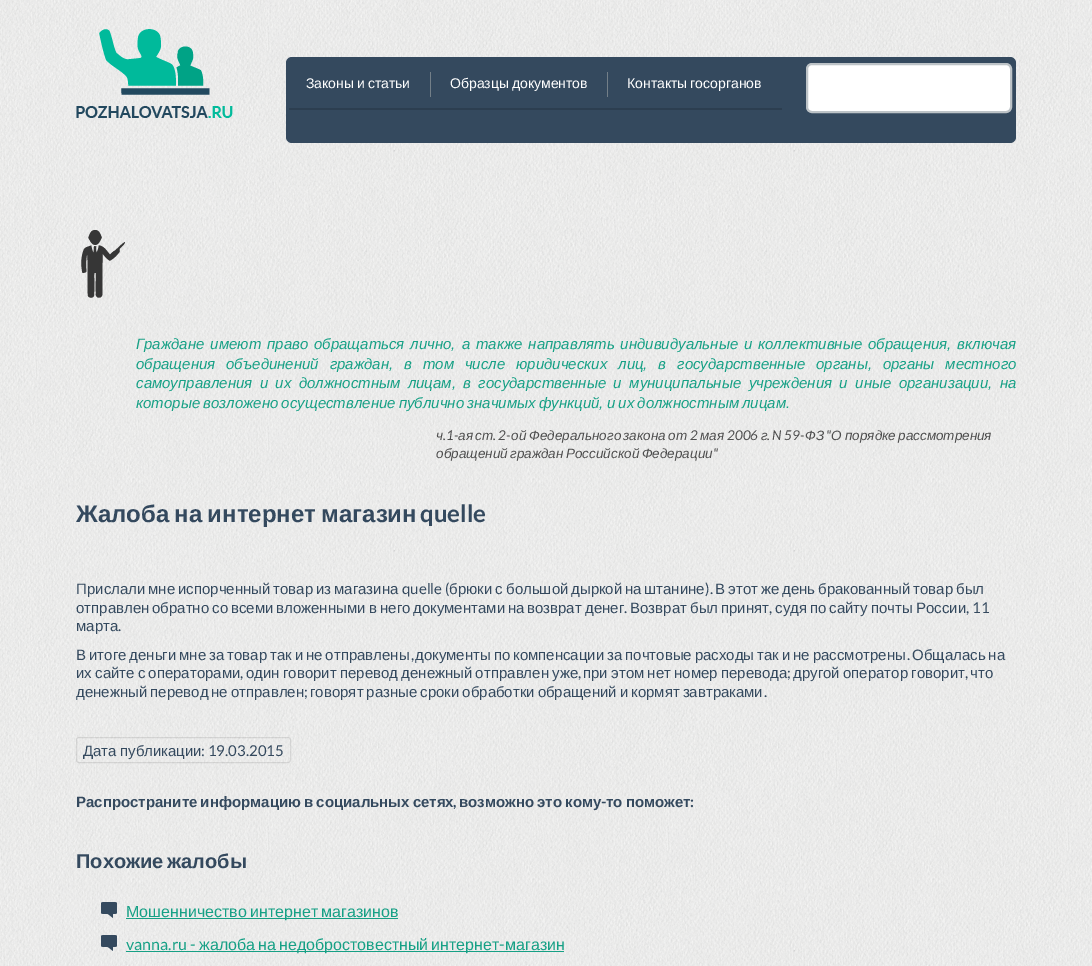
%!PS-Adobe-3.0
%%BoundingBox: 0 0 1092 966
%%LanguageLevel: 3
%%Pages: 1
%%EndComments
%%BeginProlog
/m { moveto } bind def
/f { fill } bind def
/S { stroke } bind def
/q { gsave } bind def
/Q { grestore } bind def
/w { setlinewidth } bind def
/fn { [ exch dup neg 0 0 3 -1 roll 0 0 ] selectfont } def
/tx { moveto show } def
/bx { rectfill } def
/al { dup .setfillconstantalpha .setstrokeconstantalpha } def
/rr { 5 dict begin { /r /h /w /y /x } { exch def } forall
  x r add y moveto x w add y 2 copy h add r arct x w add y h add x 1 index r arct
  x y h add x y r arct x y 2 copy exch w add exch r arct closepath end } def
/im { 5 dict begin { /h /w /y /x /name } { exch def } forall
  gsave x y translate w h scale
  w h 8 [w 0 0 h 0 0] name (r) file false 3 colorimage grestore end } def
%%EndProlog
%%BeginSetup
<< /PageSize [1092 966] /PageUsesTransparency true >> setpagedevice
%%EndSetup
%%Page: 1 1
0 .pushpdf14devicefilter
0 966 translate 1 -1 scale
4 setmiterlimit
1 setgray
0 0 1092 966 bx
(image0.raw) 0 0 1092 966 im
(image1.raw) 76 29 157 89 im
0.204 0.286 0.369 setrgbcolor
286 57 730 86 6 rr f
0.173 0.243 0.314 setrgbcolor
289 108 493 2 bx
/LiberationSans-Regular 14 fn
1 setgray
306 88 m -1 0 32 (Законы и статьи) widthshow
0.451 0.498 0.533 setrgbcolor
430 72 1 25 bx
1 setgray
450 88 m -1 0 32 (Образцы документов) widthshow
0.451 0.498 0.533 setrgbcolor
607 72 1 25 bx
1 setgray
627 88 m -1 0 32 (Контакты госорганов) widthshow
807 64 204 48 5 rr q f Q
0.741 0.765 0.78 setrgbcolor
2 w
S
(image2.raw) 81 230 44 68 im
/LiberationSans-Italic 15 fn
0.086 0.627 0.522 setrgbcolor
136 349 m 1.75 0 32 (Граждане имеют право обращаться лично, а также направлять индивидуальные и коллективные обращения, включая) widthshow
136 369 m 6.75 0 32 (обращения объединений граждан, в том числе юридических лиц, в государственные органы, органы местного) widthshow
136 388 m 3.25 0 32 (самоуправления и их должностным лицам, в государственные и муниципальные учреждения и иные организации, на) widthshow
136 408 m -1 0 32 (которые возложено осуществление публично значимых функций, и их должностным лицам.) widthshow
/LiberationSans-Italic 13.5 fn
0.306 setgray
(ч) 436 440 tx
/Lato-Italic 13.5 fn
(.1-) 443 440 tx
/LiberationSans-Italic 13.5 fn
(ая) 458 440 tx
(ст) 475 440 tx
/Lato-Italic 13.5 fn
(. 2-) 493 440 tx
/LiberationSans-Italic 13.5 fn
(ой) 511 440 tx
(Федерального) 529 440 tx
(закона) 623 440 tx
(от) 668 440 tx
/Lato-Italic 13.5 fn
(2) 690 440 tx
/LiberationSans-Italic 13.5 fn
(мая) 700 440 tx
/Lato-Italic 13.5 fn
(2006) 727 440 tx
/LiberationSans-Italic 13.5 fn
(г) 761 440 tx
/Lato-Italic 13.5 fn
(. N 59-) 767 440 tx
/LiberationSans-Italic 13.5 fn
(ФЗ) 805 440 tx
/Lato-Italic 13.5 fn
(") 826 440 tx
/LiberationSans-Italic 13.5 fn
(О) 831 440 tx
(порядке) 845 440 tx
(рассмотрения) 898 440 tx
436 458 m -1.25 0 32 (обращений граждан Российской Федерации) widthshow
/Lato-Italic 13.5 fn
(") 713 458 tx
/LiberationSans-Bold 24 fn
0.204 0.286 0.369 setrgbcolor
76 522 m -1.5 0 32 (Жалоба на интернет магазин) widthshow
/Lato-Bold 24 fn
(quelle) 420 522 tx
/LiberationSans-Regular 15 fn
(Прислали) 76 594 tx
(мне) 148 594 tx
(испорченный) 178 594 tx
(товар) 273 594 tx
(из) 316 594 tx
(магазина) 334 594 tx
/Lato-Regular 15 fn
(quelle \() 402 594 tx
/LiberationSans-Regular 15 fn
(брюки) 449 594 tx
(с) 495 594 tx
(большой) 506 594 tx
(дыркой) 571 594 tx
(на) 625 594 tx
(штанине) 644 594 tx
/Lato-Regular 15 fn
(\).) 705 594 tx
/LiberationSans-Regular 15 fn
(В) 715 594 tx
(этот) 728 594 tx
(же) 761 594 tx
(день) 782 594 tx
(бракованный) 818 594 tx
(товар) 913 594 tx
(был) 956 594 tx
(отправлен) 76 613 tx
(обратно) 152 613 tx
(со) 212 613 tx
(всеми) 231 613 tx
(вложенными) 276 613 tx
(в) 369 613 tx
(него) 380 613 tx
(документами) 413 613 tx
(на) 508 613 tx
(возврат) 527 613 tx
(денег) 585 613 tx
/Lato-Regular 15 fn
(.) 624 613 tx
/LiberationSans-Regular 15 fn
(Возврат) 630 613 tx
(был) 690 613 tx
(принят) 721 613 tx
/Lato-Regular 15 fn
(,) 769 613 tx
/LiberationSans-Regular 15 fn
(судя) 775 613 tx
(по) 810 613 tx
(сайту) 829 613 tx
(почты) 871 613 tx
(России) 916 613 tx
/Lato-Regular 15 fn
(, 11) 966 613 tx
/LiberationSans-Regular 15 fn
(марта) 76 631 tx
/Lato-Regular 15 fn
(.) 118 631 tx
/LiberationSans-Regular 15 fn
76 660 m -1.25 0 32 (В итоге деньги мне за товар так и не отправлены) widthshow
/Lato-Regular 15 fn
(,) 411 660 tx
/LiberationSans-Regular 15 fn
415 660 m -1.25 0 32 (документы по компенсации за почтовые расходы так и не рассмотрены) widthshow
/Lato-Regular 15 fn
(.) 907 660 tx
/LiberationSans-Regular 15 fn
912 660 m -1.25 0 32 (Общалась на) widthshow
76 678 m -1 0 32 (их сайте с операторами) widthshow
/Lato-Regular 15 fn
(,) 240 678 tx
/LiberationSans-Regular 15 fn
246 678 m -1 0 32 (один говорит перевод денежный отправлен уже) widthshow
/Lato-Regular 15 fn
(,) 578 678 tx
/LiberationSans-Regular 15 fn
583 678 m -1 0 32 (при этом нет номер перевода) widthshow
/Lato-Regular 15 fn
(;) 787 678 tx
/LiberationSans-Regular 15 fn
793 678 m -1 0 32 (другой оператор говорит) widthshow
/Lato-Regular 15 fn
(,) 965 678 tx
/LiberationSans-Regular 15 fn
(что) 970 678 tx
76 697 m -1.25 0 32 (денежный перевод не отправлен) widthshow
/Lato-Regular 15 fn
(;) 304 697 tx
/LiberationSans-Regular 15 fn
310 697 m -1.25 0 32 (говорят разные сроки обработки обращений и кормят завтраками) widthshow
/Lato-Regular 15 fn
(.) 764 697 tx
0.1 al
0 setgray
1 w
76.5 737.5 214 25 2.5 rr S
/LiberationSans-Regular 15 fn
1 al
0.204 0.286 0.369 setrgbcolor
(Дата) 83 756 tx
(публикации) 120 756 tx
/Lato-Regular 15 fn
(: 19.03.2015) 201 756 tx
/LiberationSans-Bold 15 fn
76 807 m -1 0 32 (Распространите информацию в социальных сетях) widthshow
459 807 m -1 0 32 (возможно это кому) widthshow
/Lato-Bold 15 fn
(-) 601 807 tx
/LiberationSans-Bold 15 fn
606 807 m -1 0 32 (то поможет) widthshow
/Lato-Bold 15 fn
(:) 690 807 tx
(,) 453 807 tx
/LiberationSans-Bold 20 fn
76 868 m -2 0 32 (Похожие жалобы) widthshow
(image3.raw) 101 902 16 16 im
0.086 0.627 0.522 setrgbcolor
126 918 272 1 bx
/LiberationSans-Regular 16 fn
126 917 m -1 0 32 (Мошенничество интернет магазинов) widthshow
(image4.raw) 101 935 16 16 im
/Lato-Regular 16 fn
(vanna.ru -) 126 950 tx
/LiberationSans-Regular 16 fn
(жалоба) 199 950 tx
(на) 258 950 tx
126 951 438 1 bx
(недобростовестный) 279 950 tx
(интернет) 431 950 tx
/Lato-Regular 16 fn
(-) 499 950 tx
/LiberationSans-Regular 16 fn
(магазин) 505 950 tx
.poppdf14devicefilter showpage
%%EOF
